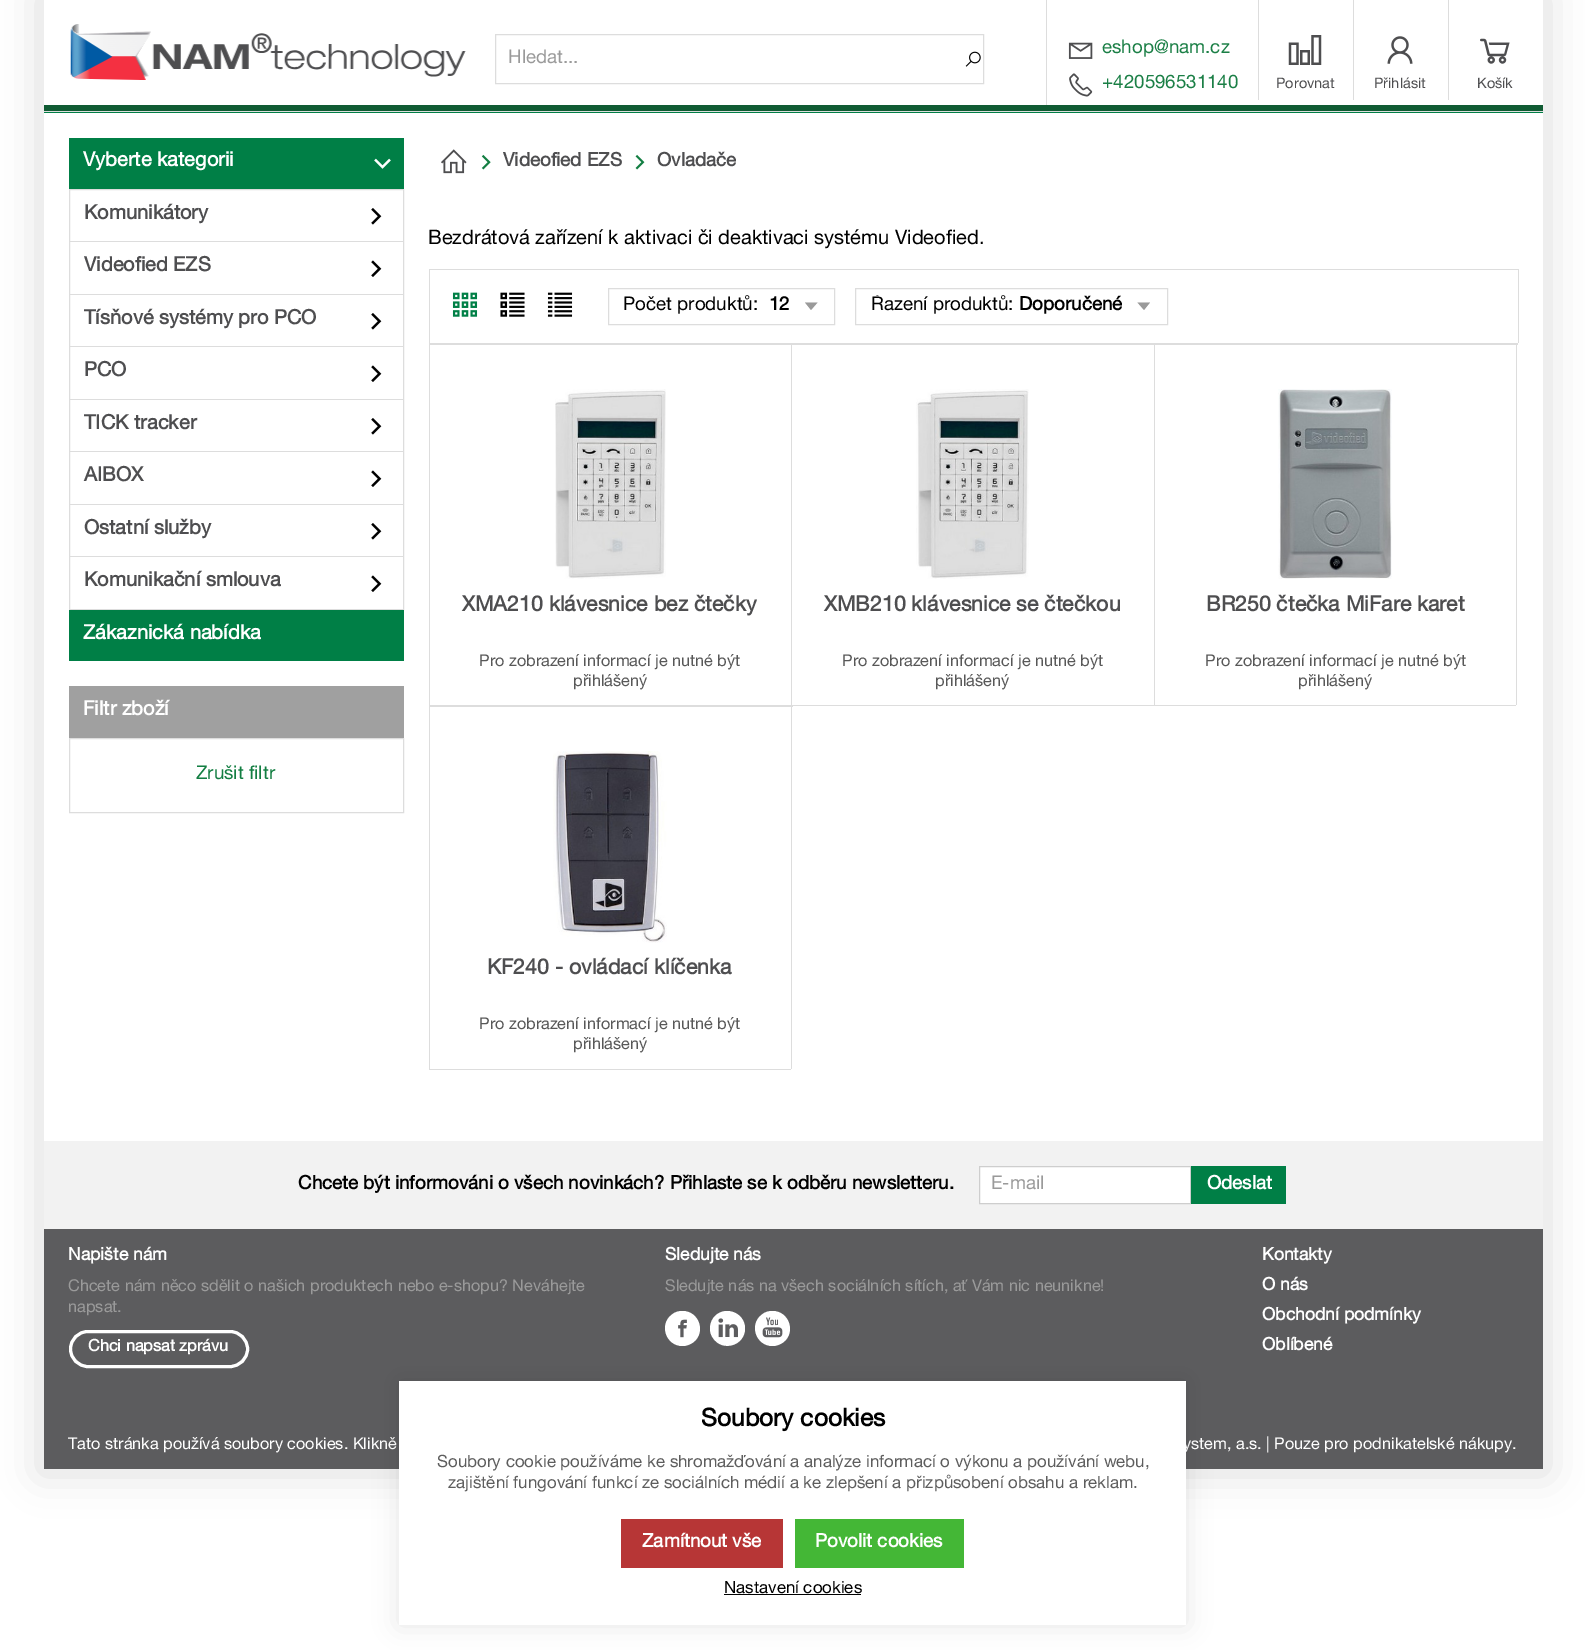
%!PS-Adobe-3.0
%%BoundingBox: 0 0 1585 1650
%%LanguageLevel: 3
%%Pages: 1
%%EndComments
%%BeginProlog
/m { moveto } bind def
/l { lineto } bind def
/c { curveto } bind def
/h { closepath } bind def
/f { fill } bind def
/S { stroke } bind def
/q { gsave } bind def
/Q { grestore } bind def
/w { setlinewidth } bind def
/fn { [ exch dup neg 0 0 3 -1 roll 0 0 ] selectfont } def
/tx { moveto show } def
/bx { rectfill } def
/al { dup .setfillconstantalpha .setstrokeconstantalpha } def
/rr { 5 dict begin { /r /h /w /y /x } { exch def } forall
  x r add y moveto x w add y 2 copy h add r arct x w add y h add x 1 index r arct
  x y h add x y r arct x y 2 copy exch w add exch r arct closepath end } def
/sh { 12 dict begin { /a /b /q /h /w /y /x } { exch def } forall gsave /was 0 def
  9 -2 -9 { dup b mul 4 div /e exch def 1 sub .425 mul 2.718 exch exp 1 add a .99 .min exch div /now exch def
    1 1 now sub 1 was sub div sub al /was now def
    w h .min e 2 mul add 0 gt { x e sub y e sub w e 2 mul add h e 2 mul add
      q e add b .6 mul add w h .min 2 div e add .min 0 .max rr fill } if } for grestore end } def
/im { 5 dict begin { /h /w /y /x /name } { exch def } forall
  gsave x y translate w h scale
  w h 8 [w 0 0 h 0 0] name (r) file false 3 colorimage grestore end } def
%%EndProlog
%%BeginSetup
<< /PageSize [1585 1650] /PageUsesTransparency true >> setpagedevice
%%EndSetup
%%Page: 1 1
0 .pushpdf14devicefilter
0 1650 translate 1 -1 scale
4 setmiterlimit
1 setgray
0 0 1585 1650 bx
0.867 setgray
39 -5 1509 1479 0 20 1 sh
1 setgray
44 0 1499 1141 bx
(image0.raw) 70 24 396 56 im
0.867 setgray
495.5 34.5 488 49 rectstroke
/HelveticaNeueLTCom-Regular 18.75 fn
0.604 setgray
(Hledat...) 508 63 tx
(image1.raw) 965 51 16 16 im
0.867 setgray
1046 0 1 105 bx
(image2.raw) 1068 42 25 17 im
0.106 0.498 0.275 setrgbcolor
(eshop@nam.cz) 1102 53 tx
(image3.raw) 1069 73 24 24 im
(+420596531140) 1102 88 tx
0.867 setgray
1258 0 1 100 bx
(image4.raw) 1288 35 34 30 im
/HelveticaNeueLTCom-Regular 14.5 fn
0.306 0.306 0.314 setrgbcolor
(Porovnat) 1276 88 tx
0.867 setgray
1353 0 1 100 bx
(image5.raw) 1387 36 26 28 im
0.306 0.306 0.314 setrgbcolor
(Přihlásit) 1374 88 tx
0.867 setgray
1448 0 1 100 bx
(image6.raw) 1480 38 30 26 im
0.306 0.306 0.314 setrgbcolor
(Košík) 1477 88 tx
0 0.498 0.275 setrgbcolor
44 112 1499 1 bx
0.063 0.357 0.2 setrgbcolor
44 105 1499 6 bx
0.867 setgray
44 111 1499 1 bx
0 0.498 0.275 setrgbcolor
69 138 335 51 bx
/HelveticaNeueLTCom-Bold 20 fn
1 setgray
(Vyberte kategorii) 83 166 tx
(image7.raw) 374 158 17 11 im
0.867 setgray
69.5 189.5 334 420 rectstroke
70 241 333 1 bx
0.306 0.306 0.314 setrgbcolor
(Komunikátory) 84 219 tx
(image8.raw) 371 208 11 17 im
0.867 setgray
70 294 333 1 bx
0.306 0.306 0.314 setrgbcolor
(Videofied EZS) 84 271 tx
(image9.raw) 371 260 11 17 im
0.867 setgray
70 346 333 1 bx
0.306 0.306 0.314 setrgbcolor
(Tísňové systémy pro PCO) 84 324 tx
(image8.raw) 371 313 11 17 im
0.867 setgray
70 399 333 1 bx
0.306 0.306 0.314 setrgbcolor
(PCO) 84 376 tx
(image9.raw) 371 365 11 17 im
0.867 setgray
70 451 333 1 bx
0.306 0.306 0.314 setrgbcolor
(TICK tracker) 84 429 tx
(image8.raw) 371 418 11 17 im
0.867 setgray
70 504 333 1 bx
0.306 0.306 0.314 setrgbcolor
(AIBOX) 84 481 tx
(image9.raw) 371 470 11 17 im
0.867 setgray
70 556 333 1 bx
0.306 0.306 0.314 setrgbcolor
(Ostatní služby) 84 534 tx
(image8.raw) 371 523 11 17 im
(Komunikační smlouva) 84 586 tx
(image9.raw) 371 575 11 17 im
0 0.498 0.275 setrgbcolor
69 610 335 51 bx
1 setgray
(Zákaznická nabídka) 83 639 tx
0.627 setgray
69 686 335 52 bx
1 setgray
(Filtr zboží) 83 715 tx
0.867 setgray
69.5 738.5 334 74 rectstroke
/HelveticaNeueLTCom-Regular 18.75 fn
0.075 0.494 0.259 setrgbcolor
(Zrušit filtr) 196 779 tx
(image10.raw) 441 149 26 25 im
(image11.raw) 481 154 10 16 im
/HelveticaNeueLTCom-Bold 18.75 fn
0.306 0.306 0.314 setrgbcolor
(Videofied EZS) 503 166 tx
(image12.raw) 635 154 10 16 im
(Ovladače) 657 166 tx
/HelveticaNeueLTCom-Regular 20 fn
0 setgray
(Bezdrátová zařízení k aktivaci či deaktivaci systému Videofied.) 428 244 tx
0.867 setgray
429 269 1090 1 bx
1518 269 1 74 bx
429 269 1 74 bx
(image13.raw) 452 292 26 25 im
(image14.raw) 500 292 25 25 im
(image15.raw) 547 292 26 25 im
0.604 setgray
811 310 m 805 302.5 l 817.5 302.5 l h f
0.867 setgray
608.5 288.5 226 36 rectstroke
/HelveticaNeueLTCom-Regular 18.75 fn
0 setgray
(Počet produktů:) 623 310 tx
/HelveticaNeueLTCom-Bold 18.75 fn
(12) 769 310 tx
0.604 setgray
1144 310 m 1137.5 302.5 l 1150 302.5 l h f
0.867 setgray
855.5 288.5 312 36 rectstroke
q
871 295 252 23 rectclip
/HelveticaNeueLTCom-Regular 18.75 fn
0 setgray
(Řazení produktů:) 871 310 tx
Q
0 setgray
(Doporučené) 1019 310 tx
0.867 setgray
429 343 1089 1 bx
429 705 1087 1 bx
429 344 364 1 bx
791 344 1 361 bx
429 344 1 361 bx
(image16.raw) 555 389 111 190 im
/HelveticaNeueLTCom-Bold 21.25 fn
0.306 0.306 0.314 setrgbcolor
(XMA210 klávesnice bez čtečky) 462 611 tx
/HelveticaNeueLTCom-Regular 16.25 fn
0.345 setgray
(Pro zobrazení informací je nutné být) 479 666 tx
(přihlášený) 573 686 tx
0.867 setgray
791 344 364 1 bx
1154 344 1 361 bx
(image17.raw) 916 389 113 190 im
/HelveticaNeueLTCom-Bold 21.25 fn
0.306 0.306 0.314 setrgbcolor
(XMB210 klávesnice se čtečkou) 824 611 tx
/HelveticaNeueLTCom-Regular 16.25 fn
0.345 setgray
(Pro zobrazení informací je nutné být) 842 666 tx
(přihlášený) 935 686 tx
0.867 setgray
1154 344 364 1 bx
1516 344 1 361 bx
(image18.raw) 1278 389 114 190 im
/HelveticaNeueLTCom-Bold 21.25 fn
0.306 0.306 0.314 setrgbcolor
(BR250 čtečka MiFare karet) 1206 611 tx
/HelveticaNeueLTCom-Regular 16.25 fn
0.345 setgray
(Pro zobrazení informací je nutné být) 1205 666 tx
(přihlášený) 1298 686 tx
0.867 setgray
429 1069 362 1 bx
429 706 364 1 bx
791 706 1 363 bx
429 706 1 363 bx
(image19.raw) 553 751 114 192 im
/HelveticaNeueLTCom-Bold 21.25 fn
0.306 0.306 0.314 setrgbcolor
(KF240 - ovládací klíčenka) 487 974 tx
/HelveticaNeueLTCom-Regular 16.25 fn
0.345 setgray
(Pro zobrazení informací je nutné být) 479 1029 tx
(přihlášený) 573 1049 tx
0.949 setgray
44 1141 1499 88 bx
/HelveticaNeueLTCom-Bold 18.75 fn
0 setgray
(Chcete být informováni o všech novinkách? Přihlaste se k odběru newsletteru.) 298 1189 tx
1 setgray
979.5 1166.5 m 1190.5 1166.5 l 1190.5 1203.5 l 979.5 1203.5 l h q f Q
0.808 setgray
S
/HelveticaNeueLTCom-Regular 18.75 fn
0.604 setgray
(E-mail) 991 1189 tx
0 0.498 0.275 setrgbcolor
1191 1166 95 38 bx
/HelveticaNeueLTCom-Bold 18.75 fn
1 setgray
(Odeslat) 1207 1189 tx
0.361 0.361 0.369 setrgbcolor
44 1229 1499 240 bx
/HelveticaNeueLTCom-Bold 17.5 fn
1 setgray
(Napište nám) 68 1260 tx
/HelveticaNeueLTCom-Regular 16.25 fn
0.604 setgray
(Chcete nám něco sdělit o našich produktech nebo e-shopu? Neváhejte) 68 1291 tx
(napsat.) 68 1312 tx
1 setgray
3 w
70.5 1331.5 177 35 17.5 rr S
/HelveticaNeueLTCom-Bold 16.25 fn
(Chci napsat zprávu) 88 1351 tx
/HelveticaNeueLTCom-Bold 17.5 fn
(Sledujte nás) 665 1260 tx
/HelveticaNeueLTCom-Regular 16.25 fn
0.604 setgray
(Sledujte nás na všech sociálních sítích, ať Vám nic neunikne!) 665 1291 tx
1 setgray
682.5 1311 m 699 1311 706.5 1332.5 693 1342.5 c 690 1344.5 686.5 1346 682.5 1346 c 666 1346 658.5 1324.5 672 1314.5 c 675 1312 678.5 1311 682.5 1311 c h f
(image20.raw) 678 1319 9 19 im
745 1328.5 m 745 1345.5 722.5 1352.5 713 1338 c 711 1335.5 710 1332 710 1328.5 c 710 1325 711 1321.5 713 1318.5 c 722.5 1304.5 745 1311.5 745 1328.5 c h f
(image21.raw) 718 1318 20 20 im
772.5 1311 m 789 1311 796.5 1332.5 783 1342.5 c 780 1344.5 776.5 1346 772.5 1346 c 756 1346 748.5 1324.5 762 1314.5 c 765 1312 768.5 1311 772.5 1311 c h f
(image22.raw) 762 1317 21 21 im
/HelveticaNeueLTCom-Bold 17.5 fn
(Kontakty) 1262 1260 tx
(O nás) 1262 1290 tx
(Obchodní podmínky) 1262 1320 tx
(Oblíbené) 1262 1350 tx
/HelveticaNeueLTCom-Regular 16.25 fn
(Tato stránka používá soubory cookies. Klikně) 68 1449 tx
(ystem, a.s. | Pouze pro podnikatelské nákupy.) 1183 1449 tx
0 setgray
399 1381 787 244 0 12.5 0.1 sh
1 setgray
399 1381 787 244 bx
/HelveticaNeueLTCom-Bold 24.5 fn
0 setgray
(Soubory cookies) 701 1426 tx
/HelveticaNeueLTCom-Regular 16.9 fn
0.369 setgray
(Soubory cookie používáme ke shromažďování a analýze informací o výkonu a používání webu,) 437 1467 tx
(zajištění fungování funkcí ze sociálních médií a ke zlepšení a přizpůsobení obsahu a reklam.) 448 1488 tx
0.718 0.212 0.212 setrgbcolor
621 1519 162 49 bx
/HelveticaNeueLTCom-Bold 18.75 fn
1 setgray
(Zamítnout vše) 642 1547 tx
0.267 0.718 0.212 setrgbcolor
795 1519 169 49 bx
1 setgray
(Povolit cookies) 815 1547 tx
/HelveticaNeueLTCom-Regular 16.9 fn
0 setgray
(Nastavení cookies) 724 1593 tx
724 1594 137 1 bx
.poppdf14devicefilter showpage
%%EOF
